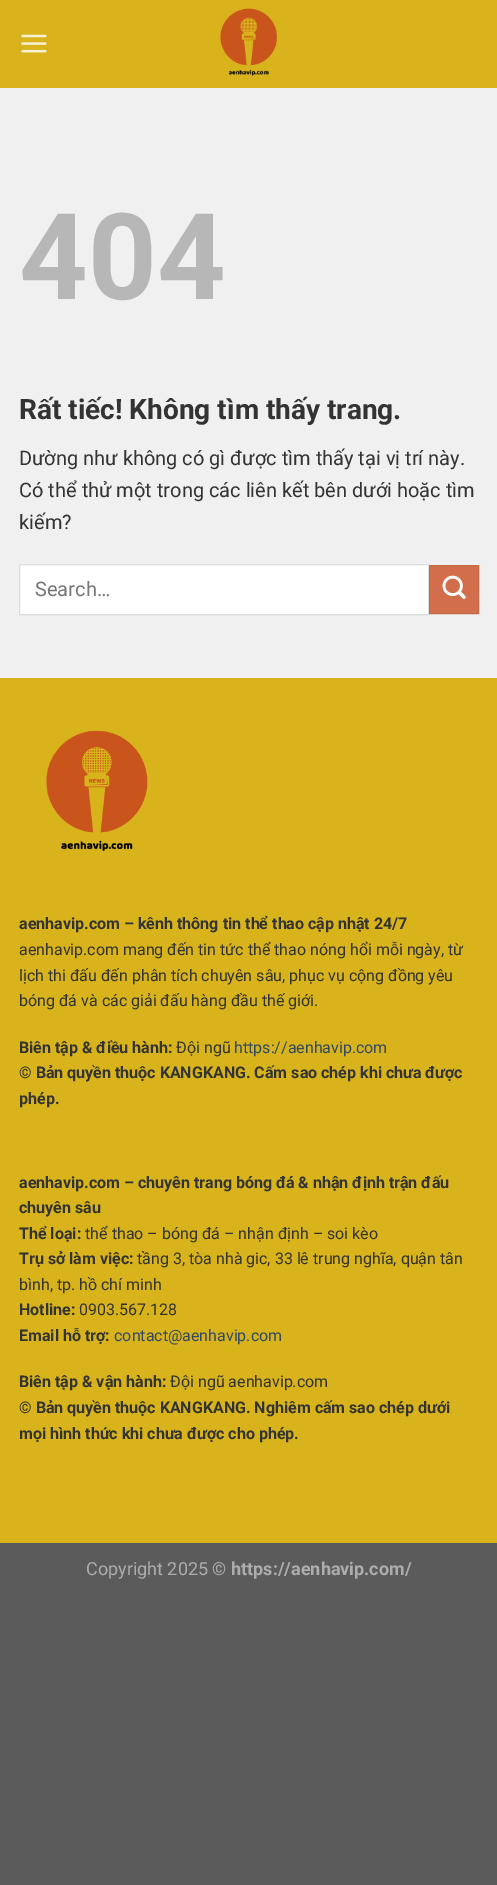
%!PS-Adobe-3.0
%%BoundingBox: 0 0 497 1885
%%LanguageLevel: 3
%%Pages: 1
%%EndComments
%%BeginProlog
/m { moveto } bind def
/l { lineto } bind def
/h { closepath } bind def
/f { fill } bind def
/S { stroke } bind def
/q { gsave } bind def
/Q { grestore } bind def
/fn { [ exch dup neg 0 0 3 -1 roll 0 0 ] selectfont } def
/tx { moveto show } def
/bx { rectfill } def
/im { 5 dict begin { /h /w /y /x /name } { exch def } forall
  gsave x y translate w h scale
  w h 8 [w 0 0 h 0 0] name (r) file false 3 colorimage grestore end } def
%%EndProlog
%%BeginSetup
<< /PageSize [497 1885] >> setpagedevice
%%EndSetup
%%Page: 1 1
0 1885 translate 1 -1 scale
4 setmiterlimit
0.357 setgray
0 0 497 1885 bx
0.941 setgray
0 88 497 590 bx
0.847 0.702 0.11 setrgbcolor
0 0 497 88 bx
(image0.raw) 21 34 26 19 im
(image1.raw) 220 8 57 68 im
/Roboto-Bold 120 fn
0.718 setgray
(404) 19 299 tx
/Roboto-Bold 28 fn
0.2 setgray
(Rất tiếc! Không tìm thấy trang.) 19 419 tx
/Roboto-Regular 20 fn
(Dường như không có gì được tìm thấy tại vị trí này.) 19 465 tx
(Có thể thử một trong các liên kết bên dưới hoặc tìm) 19 497 tx
(kiếm?) 19 529 tx
1 setgray
19.5 564.5 m 428.5 564.5 l 428.5 614.5 l 19.5 614.5 l h q f Q
0.867 setgray
S
0.459 setgray
(Search…) 35 596 tx
0.824 0.431 0.294 setrgbcolor
429.5 565.5 m 478.5 565.5 l 478.5 613.5 l 429.5 613.5 l h q f Q
0.784 0.412 0.278 setrgbcolor
S
(image2.raw) 442 575 24 24 im
0.847 0.702 0.11 setrgbcolor
0 678 497 865 bx
(image3.raw) 46 730 102 121 im
/Roboto-Bold 16 fn
0.2 setgray
(aenhavip.com – kênh thông tin thể thao cập nhật 24/7) 19 929 tx
/Roboto-Regular 16 fn
(aenhavip.com mang đến tin tức thể thao nóng hổi mỗi ngày, từ) 19 955 tx
(lịch thi đấu đến phân tích chuyên sâu, phục vụ cộng đồng yêu) 19 981 tx
(bóng đá và các giải đấu hàng đầu thế giới.) 19 1006 tx
/Roboto-Bold 16 fn
(Biên tập & điều hành:) 19 1053 tx
/Roboto-Regular 16 fn
(Đội ngũ) 176 1053 tx
0.2 0.282 0.384 setrgbcolor
(https://aenhavip.com) 234 1053 tx
/Roboto-Bold 16 fn
0.2 setgray
(© Bản quyền thuộc KANGKANG. Cấm sao chép khi chưa được) 19 1078 tx
(phép.) 19 1104 tx
(aenhavip.com – chuyên trang bóng đá & nhận định trận đấu) 19 1188 tx
(chuyên sâu) 19 1213 tx
(Thể loại:) 19 1239 tx
/Roboto-Regular 16 fn
(thể thao – bóng đá – nhận định – soi kèo) 85 1239 tx
/Roboto-Bold 16 fn
(Trụ sở làm việc:) 19 1264 tx
/Roboto-Regular 16 fn
(tầng 3, tòa nhà gic, 33 lê trung nghĩa, quận tân) 137 1264 tx
(bình, tp. hồ chí minh) 19 1290 tx
/Roboto-Bold 16 fn
(Hotline:) 19 1315 tx
/Roboto-Regular 16 fn
(0903.567.128) 79 1315 tx
/Roboto-Bold 16 fn
(Email hỗ trợ:) 19 1341 tx
/Roboto-Regular 16 fn
0.2 0.282 0.384 setrgbcolor
(contact@aenhavip.com) 114 1341 tx
/Roboto-Bold 16 fn
0.2 setgray
(Biên tập & vận hành:) 19 1387 tx
/Roboto-Regular 16 fn
(Đội ngũ aenhavip.com) 170 1387 tx
/Roboto-Bold 16 fn
(© Bản quyền thuộc KANGKANG. Nghiêm cấm sao chép dưới) 19 1413 tx
(mọi hình thức khi chưa được cho phép.) 19 1439 tx
/Roboto-Regular 18 fn
0.678 setgray
(Copyright 2025 ©) 86 1575 tx
/Roboto-Bold 18 fn
(https://aenhavip.com/) 231 1575 tx
showpage
%%EOF
